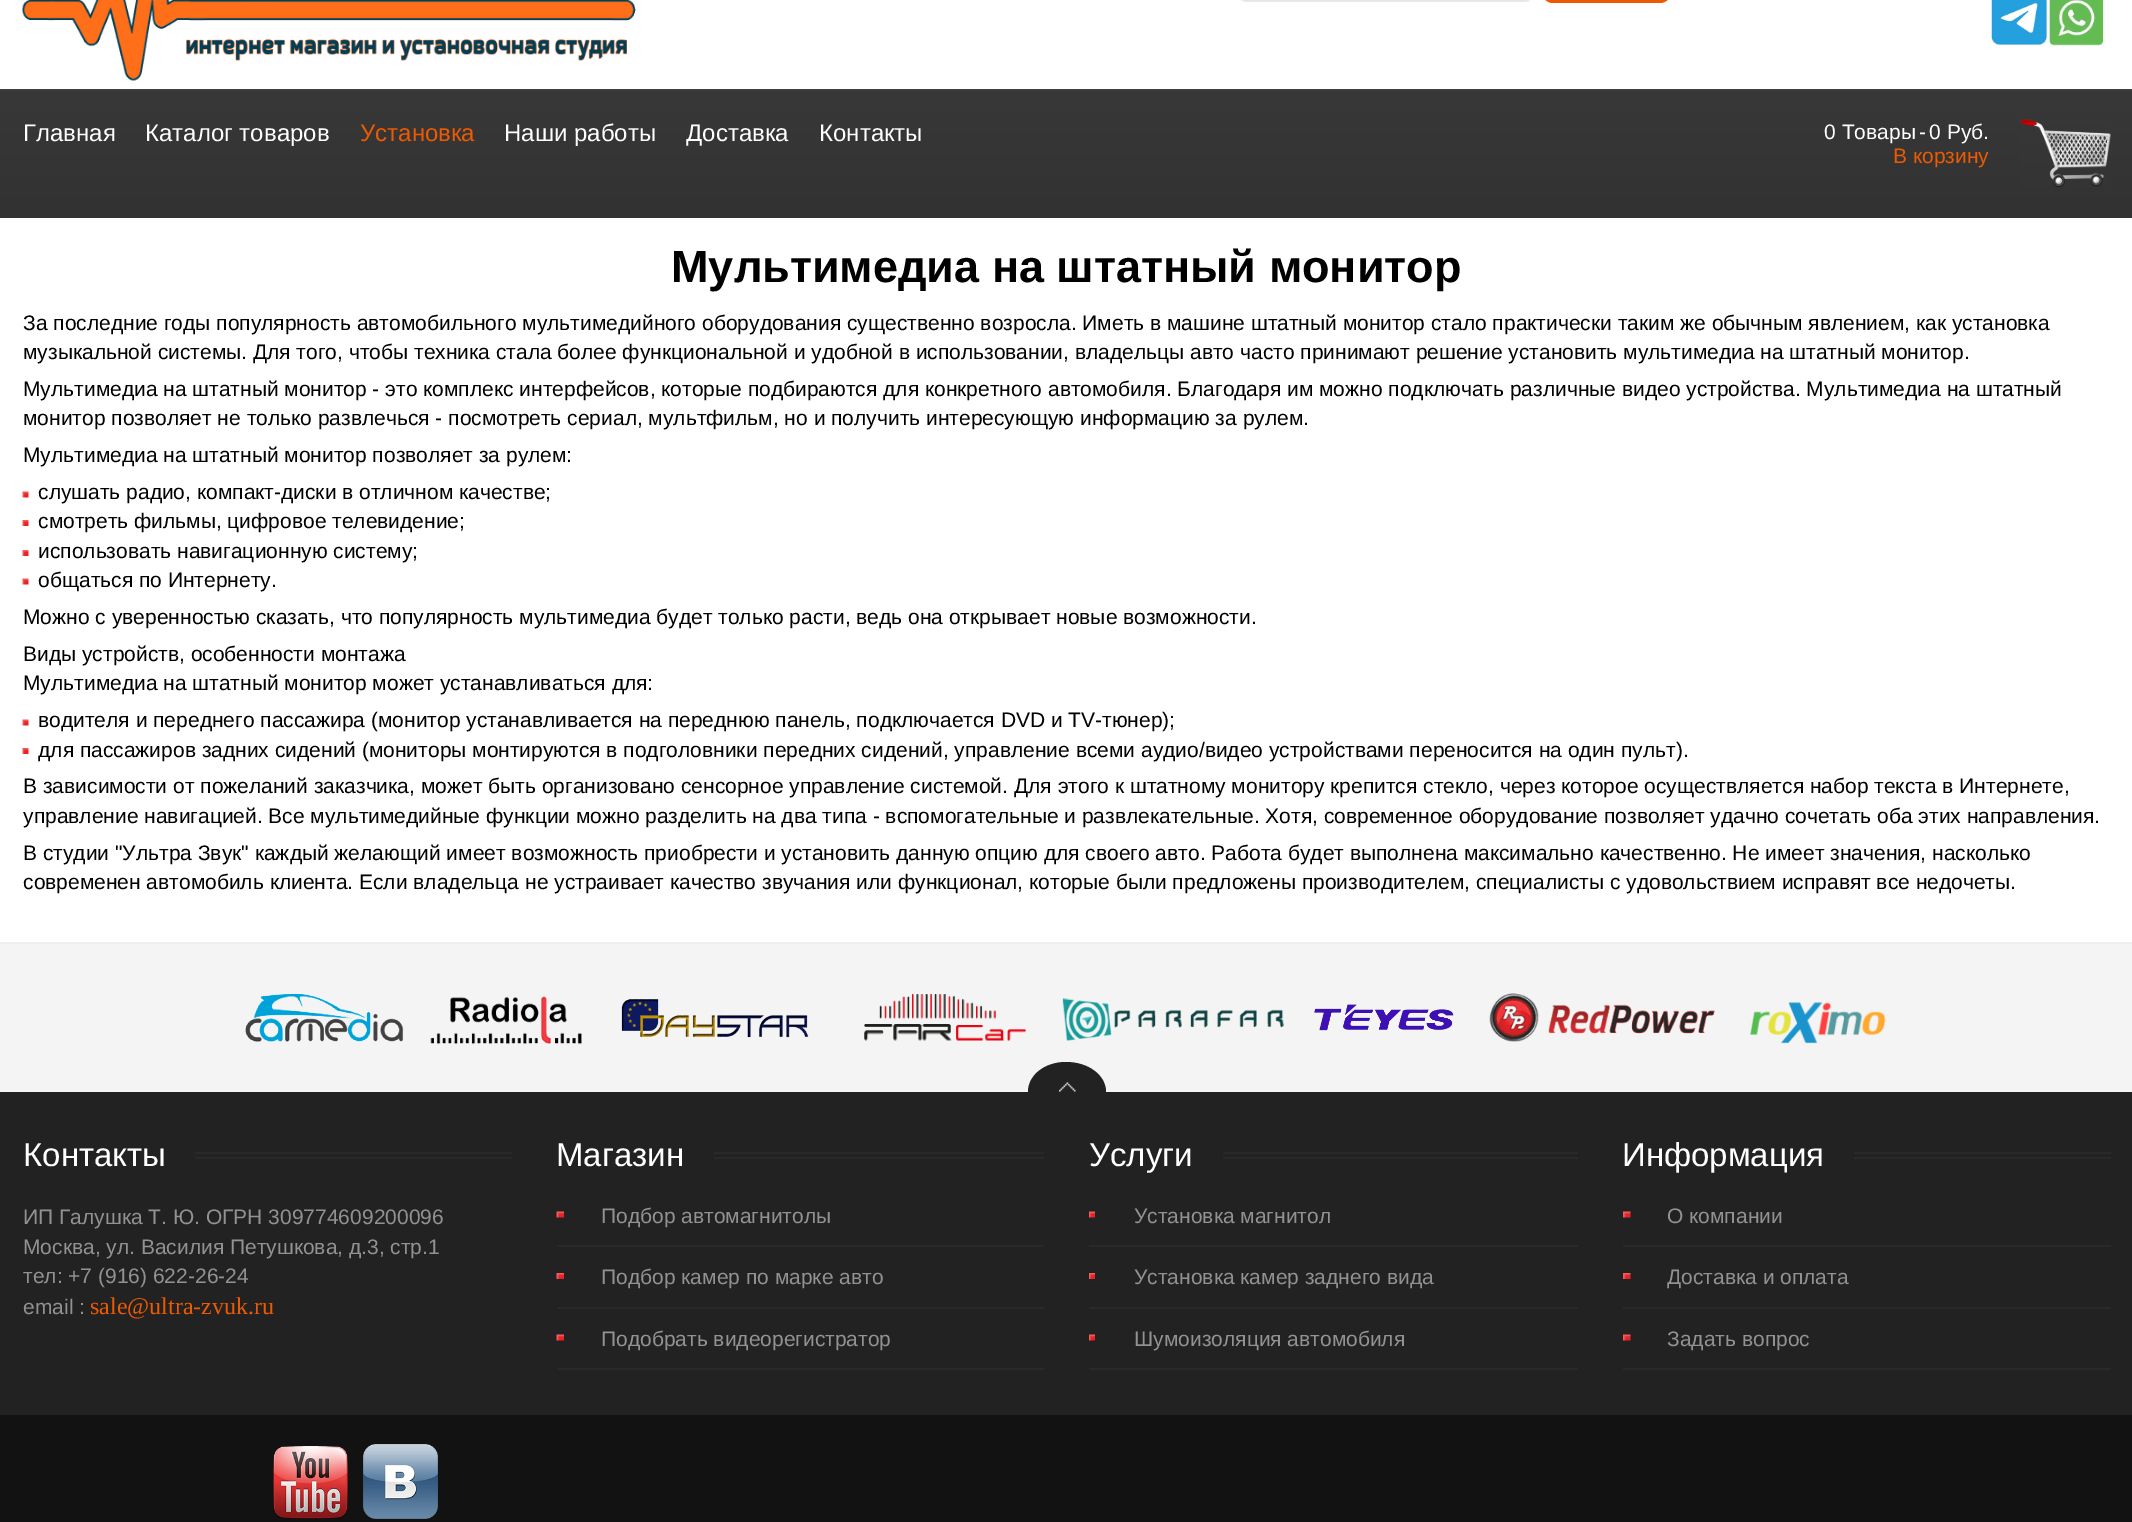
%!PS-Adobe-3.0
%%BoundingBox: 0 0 2132 1522
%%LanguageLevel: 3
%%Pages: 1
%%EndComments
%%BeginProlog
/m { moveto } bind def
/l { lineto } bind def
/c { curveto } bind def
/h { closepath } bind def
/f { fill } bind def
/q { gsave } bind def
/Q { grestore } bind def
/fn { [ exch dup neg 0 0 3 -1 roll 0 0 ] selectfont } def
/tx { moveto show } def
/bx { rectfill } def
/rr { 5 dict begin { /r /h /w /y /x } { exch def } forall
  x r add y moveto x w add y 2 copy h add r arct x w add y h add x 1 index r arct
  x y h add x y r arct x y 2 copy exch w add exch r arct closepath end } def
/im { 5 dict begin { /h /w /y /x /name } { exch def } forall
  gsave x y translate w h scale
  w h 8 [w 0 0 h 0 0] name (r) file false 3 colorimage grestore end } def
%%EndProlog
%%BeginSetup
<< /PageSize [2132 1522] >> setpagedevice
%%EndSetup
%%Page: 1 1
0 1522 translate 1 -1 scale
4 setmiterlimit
1 setgray
0 0 2132 1522 bx
(image0.raw) 22 0 614 81 im
0.906 setgray
1236 -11 300 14 11 rr f
1 setgray
1246 -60 m 1526 -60 l 1531 -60 1536 -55 1536 -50 c 1536 -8 l 1536 -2 1531 3 1526 3 c 1246 3 l 1241 3 1236 -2 1236 -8 c 1236 -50 l 1236 -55 1241 -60 1246 -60 c h 1246 -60 m 1526 -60 l 1530 -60 1534 -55 1534 -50 c 1534 -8 l 1534 -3 1530 2 1526 2 c 1246 2 l 1241 2 1236 -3 1236 -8 c 1236 -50 l 1236 -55 1241 -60 1246 -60 c h eofill
0.925 0.353 0.004 setrgbcolor
1542 -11 129 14 11 rr f
(image1.raw) 1990 0 58 46 im
(image2.raw) 2047 0 58 46 im
q 0 91 m 2132 91 l 2132 218 l 0 218 l h clip newpath
<< /ShadingType 2 /ColorSpace /DeviceRGB /Coords [1067 90 1067 218] /Extend [true true] /Function << /FunctionType 2 /Domain [0 1] /C0 [0.22 0.22 0.22] /C1 [0.196 0.196 0.196] /N 1 >> >> shfill Q
0.243 setgray
0 89 2132 2 bx
/LiberationSans-Regular 24 fn
1 setgray
(Главная) 23 141 tx
(Каталог товаров) 145 141 tx
0.925 0.353 0.004 setrgbcolor
(Установка) 360 141 tx
1 setgray
(Наши работы) 504 141 tx
(Доставка) 686 141 tx
(Контакты) 819 141 tx
/LiberationSans-Regular 21 fn
(0 Товары) 1824 139 tx
(-) 1919 139 tx
(0 Руб.) 1929 139 tx
0.925 0.353 0.004 setrgbcolor
(В корзину) 1893 163 tx
(image3.raw) 2020 119 91 68 im
/LiberationSans-Bold 45 fn
0 setgray
(Мультимедиа на штатный монитор) 671 282 tx
/LiberationSans-Regular 21 fn
(За последние годы популярность автомобильного мультимедийного оборудования существенно возросла. Иметь в машине штатный монитор стало практически таким же обычным явлением, как установка) 23 330 tx
(музыкальной системы. Для того, чтобы техника стала более функциональной и удобной в использовании, владельцы авто часто принимают решение установить мультимедиа на штатный монитор.) 23 359 tx
(Мультимедиа на штатный монитор - это комплекс интерфейсов, которые подбираются для конкретного автомобиля. Благодаря им можно подключать различные видео устройства. Мультимедиа на штатный) 23 396 tx
(монитор позволяет не только развлечься - посмотреть сериал, мультфильм, но и получить интересующую информацию за рулем.) 23 425 tx
(Мультимедиа на штатный монитор позволяет за рулем:) 23 462 tx
(image4.raw) 22 491 7 7 im
(слушать радио, компакт-диски в отличном качестве;) 38 499 tx
(image5.raw) 22 520 7 6 im
(смотреть фильмы, цифровое телевидение;) 38 528 tx
(image5.raw) 22 550 7 6 im
(использовать навигационную систему;) 38 558 tx
(image4.raw) 22 578 7 7 im
(общаться по Интернету.) 38 587 tx
(Можно с уверенностью сказать, что популярность мультимедиа будет только расти, ведь она открывает новые возможности.) 23 624 tx
(Виды устройств, особенности монтажа) 23 661 tx
(Мультимедиа на штатный монитор может устанавливаться для:) 23 690 tx
(image4.raw) 22 719 7 7 im
(водителя и переднего пассажира \(монитор устанавливается на переднюю панель, подключается DVD и TV-тюнер\);) 38 727 tx
(image5.raw) 22 748 7 6 im
(для пассажиров задних сидений \(мониторы монтируются в подголовники передних сидений, управление всеми аудио/видео устройствами переносится на один пульт\).) 38 757 tx
(В зависимости от пожеланий заказчика, может быть организовано сенсорное управление системой. Для этого к штатному монитору крепится стекло, через которое осуществляется набор текста в Интернете,) 23 793 tx
(управление навигацией. Все мультимедийные функции можно разделить на два типа - вспомогательные и развлекательные. Хотя, современное оборудование позволяет удачно сочетать оба этих направления.) 23 823 tx
(В студии "Ультра Звук" каждый желающий имеет возможность приобрести и установить данную опцию для своего авто. Работа будет выполнена максимально качественно. Не имеет значения, насколько) 23 860 tx
(современен автомобиль клиента. Если владельца не устраивает качество звучания или функционал, которые были предложены производителем, специалисты с удовольствием исправят все недочеты.) 23 889 tx
0.957 setgray
0 944 2132 148 bx
0.933 setgray
0 942 2132 2 bx
(image6.raw) 245 993 159 49 im
(image7.raw) 430 996 152 49 im
(image8.raw) 621 999 188 39 im
(image9.raw) 864 994 162 47 im
(image10.raw) 1062 998 222 43 im
(image11.raw) 1314 1004 140 27 im
(image12.raw) 1489 993 226 49 im
(image13.raw) 1749 1002 137 42 im
0.133 setgray
0 1092 2132 323 bx
1066 1062 m 1088 1062 1106 1075 1106 1092 c 1106 1122 l 1028 1122 l 1028 1092 l 1028 1075 1045 1062 1066 1062 c h f
(image14.raw) 1059 1082 17 10 im
/LiberationSans-Regular 33 fn
1 setgray
(Контакты) 23 1166 tx
0.161 setgray
195 1152 317 2 bx
195 1157 317 2 bx
/LiberationSans-Regular 21 fn
0.573 setgray
(ИП Галушка Т. Ю. ОГРН 309774609200096) 23 1224 tx
(Москва, ул. Василия Петушкова, д.3, стр.1) 23 1254 tx
(тел: +7 \(916\) 622-26-24) 23 1283 tx
(еmail :) 23 1314 tx
/LiberationSerif-Regular 24 fn
0.925 0.353 0.004 setrgbcolor
(sale@ultra-zvuk.ru) 90 1314 tx
/LiberationSans-Regular 33 fn
1 setgray
(Магазин) 556 1166 tx
0.161 setgray
714 1152 330 2 bx
714 1157 330 2 bx
(image15.raw) 556 1211 8 7 im
557 1245 487 2 bx
/LiberationSans-Regular 21 fn
0.573 setgray
(Подбор автомагнитолы) 601 1223 tx
(image16.raw) 556 1273 8 6 im
0.161 setgray
557 1307 487 2 bx
0.573 setgray
(Подбор камер по марке авто) 601 1284 tx
(image15.raw) 556 1334 8 7 im
0.161 setgray
557 1368 487 2 bx
0.573 setgray
(Подобрать видеорегистратор) 601 1346 tx
/LiberationSans-Regular 33 fn
1 setgray
(Услуги) 1089 1166 tx
0.161 setgray
1223 1152 355 2 bx
1223 1157 355 2 bx
(image17.raw) 1089 1211 6 7 im
1089 1245 489 2 bx
/LiberationSans-Regular 21 fn
0.573 setgray
(Установка магнитол) 1134 1223 tx
(image18.raw) 1089 1273 6 6 im
0.161 setgray
1089 1307 489 2 bx
0.573 setgray
(Установка камер заднего вида) 1134 1284 tx
(image17.raw) 1089 1334 6 7 im
0.161 setgray
1089 1368 489 2 bx
0.573 setgray
(Шумоизоляция автомобиля) 1134 1346 tx
/LiberationSans-Regular 33 fn
1 setgray
(Информация) 1622 1166 tx
0.161 setgray
1854 1152 257 2 bx
1854 1157 257 2 bx
(image19.raw) 1623 1211 8 7 im
1623 1245 488 2 bx
/LiberationSans-Regular 21 fn
0.573 setgray
(О компании) 1667 1223 tx
(image20.raw) 1623 1273 8 6 im
0.161 setgray
1623 1307 488 2 bx
0.573 setgray
(Доставка и оплата) 1667 1284 tx
(image19.raw) 1623 1334 8 7 im
0.161 setgray
1623 1368 488 2 bx
0.573 setgray
(Задать вопрос) 1667 1346 tx
0.071 setgray
0 1415 2132 107 bx
(image21.raw) 273 1446 75 73 im
(image22.raw) 363 1444 75 75 im
showpage
%%EOF
